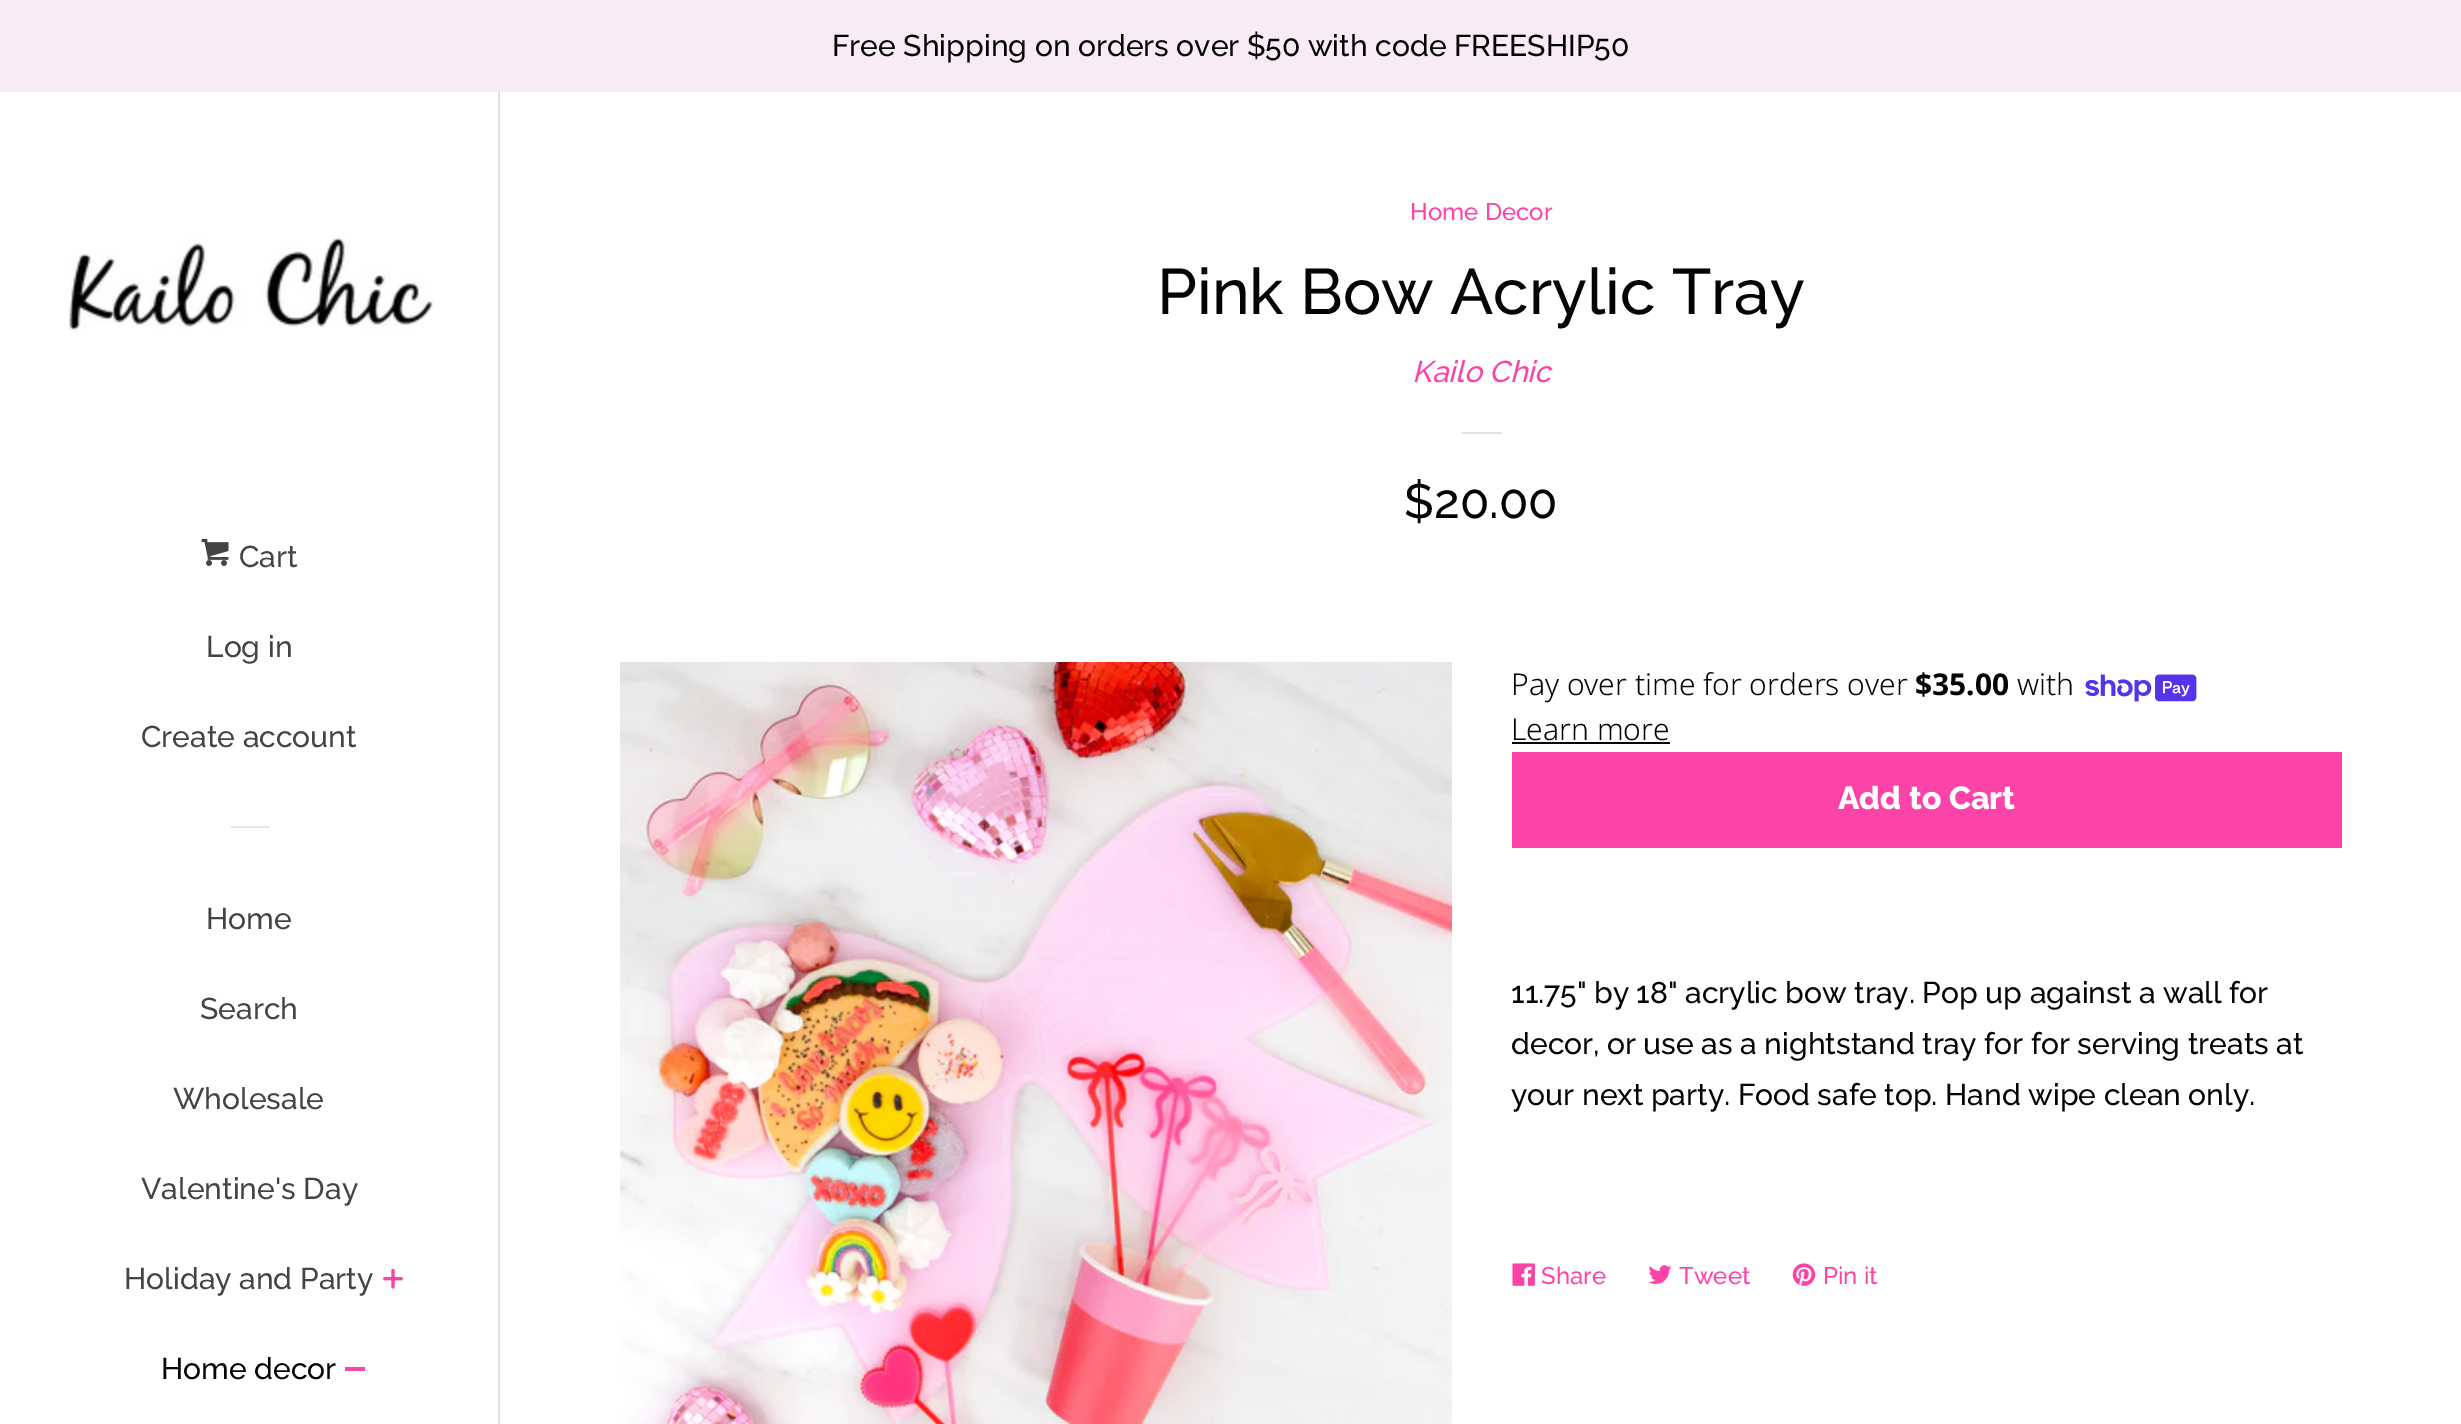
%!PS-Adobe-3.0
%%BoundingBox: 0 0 2461 1424
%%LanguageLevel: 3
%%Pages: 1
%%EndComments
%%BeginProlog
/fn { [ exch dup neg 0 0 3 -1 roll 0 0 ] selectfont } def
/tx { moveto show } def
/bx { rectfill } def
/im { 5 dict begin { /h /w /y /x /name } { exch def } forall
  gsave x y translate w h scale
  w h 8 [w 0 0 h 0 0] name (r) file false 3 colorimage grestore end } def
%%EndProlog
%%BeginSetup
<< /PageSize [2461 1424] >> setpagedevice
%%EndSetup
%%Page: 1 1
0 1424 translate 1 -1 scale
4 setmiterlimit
1 setgray
0 0 2461 1424 bx
0.886 0.875 0.875 setrgbcolor
498 92 2 1332 bx
(image0.raw) 69 237 364 97 im
(image1.raw) 201 539 28 27 im
/Raleway-Medium 30 fn
0.267 setgray
(Cart) 239 567 tx
(Log in) 206 657 tx
(Create account) 141 747 tx
0.902 setgray
230 826 40 2 bx
0.267 setgray
(Home) 206 929 tx
(Search) 200 1019 tx
(Wholesale) 173 1109 tx
(Valentine's Day) 141 1199 tx
(Holiday and Party) 124 1289 tx
(image2.raw) 383 1268 20 21 im
0.016 setgray
(Home decor) 161 1379 tx
0.988 0.267 0.659 setrgbcolor
345 1367 20 4 bx
0.976 0.922 0.961 setrgbcolor
0 0 2461 92 bx
0.016 setgray
(Free Shipping on orders over $50 with code FREESHIP50) 832 56 tx
/Raleway-Medium 24 fn
0.988 0.267 0.659 setrgbcolor
(Home Decor) 1410 220 tx
/Raleway-Medium 64 fn
0.016 setgray
(Pink Bow Acrylic Tray) 1157 314 tx
/Raleway-MediumItalic 30 fn
0.988 0.267 0.659 setrgbcolor
(Kailo Chic) 1412 382 tx
0.886 0.875 0.875 setrgbcolor
1462 432 40 2 bx
/Raleway-Medium 48 fn
0.016 setgray
($20.00) 1404 518 tx
(image3.raw) 620 662 832 762 im
/NotoSans-Light 30 fn
(Pay over time for orders over) 1511 695 tx
/NotoSans-Bold 30 fn
($35.00) 1915 695 tx
/NotoSans-Light 30 fn
(with) 2017 695 tx
(image4.raw) 2085 674 112 28 im
(Learn more) 1511 740 tx
0.012 setgray
1512 742 158 2 bx
0.988 0.267 0.659 setrgbcolor
1512 752 830 96 bx
/Raleway-ExtraBold 32 fn
1 setgray
(Add to Cart) 1838 809 tx
/Raleway-Medium 30 fn
0.016 setgray
(11.75" by 18" acrylic bow tray. Pop up against a wall for) 1511 1003 tx
(decor, or use as a nightstand tray for for serving treats at) 1511 1054 tx
(your next party. Food safe top. Hand wipe clean only.) 1511 1105 tx
(image5.raw) 1512 1263 23 23 im
/Raleway-Medium 24 fn
0.988 0.267 0.659 setrgbcolor
(Share) 1541 1284 tx
(image6.raw) 1648 1265 24 19 im
(Tweet) 1679 1284 tx
(image7.raw) 1792 1263 24 23 im
(Pin it) 1823 1284 tx
showpage
%%EOF
